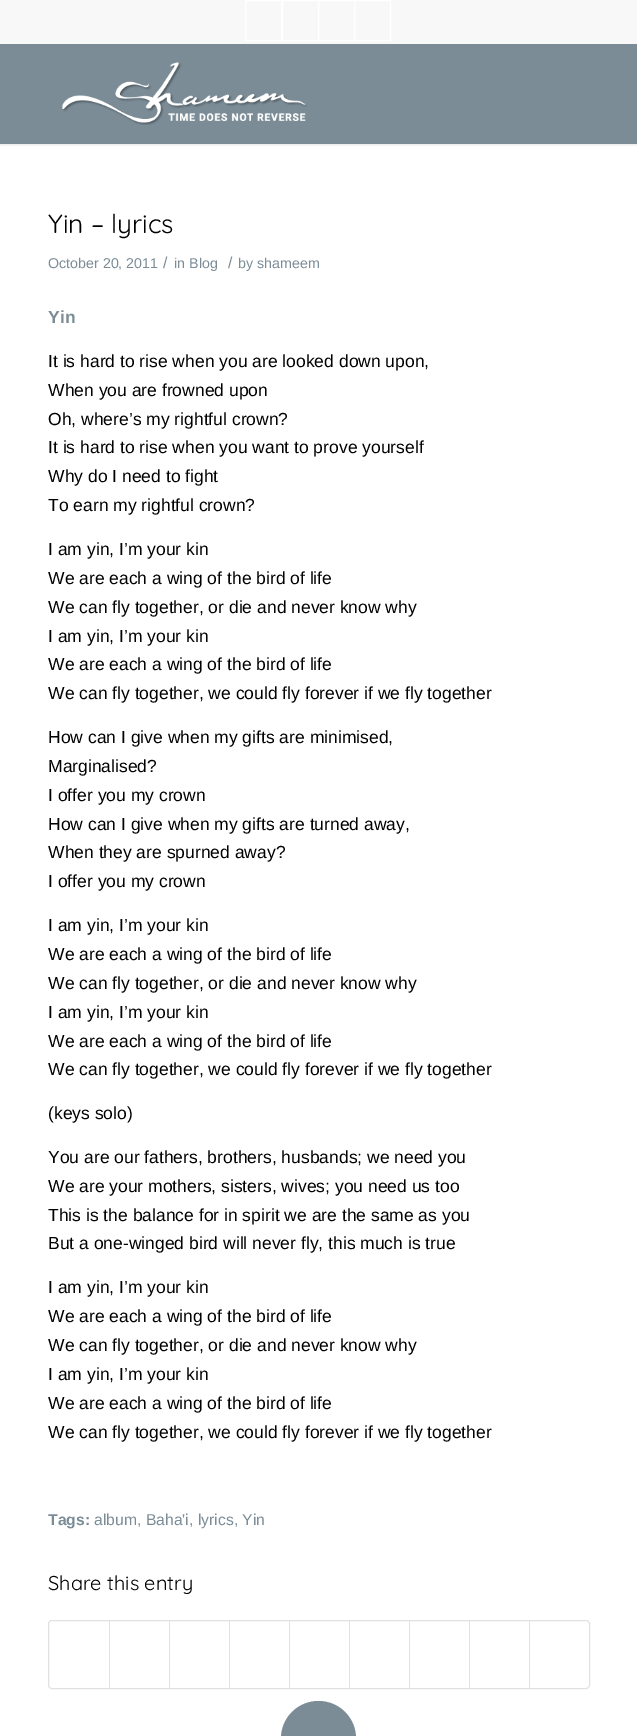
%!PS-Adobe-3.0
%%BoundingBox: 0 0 637 1736
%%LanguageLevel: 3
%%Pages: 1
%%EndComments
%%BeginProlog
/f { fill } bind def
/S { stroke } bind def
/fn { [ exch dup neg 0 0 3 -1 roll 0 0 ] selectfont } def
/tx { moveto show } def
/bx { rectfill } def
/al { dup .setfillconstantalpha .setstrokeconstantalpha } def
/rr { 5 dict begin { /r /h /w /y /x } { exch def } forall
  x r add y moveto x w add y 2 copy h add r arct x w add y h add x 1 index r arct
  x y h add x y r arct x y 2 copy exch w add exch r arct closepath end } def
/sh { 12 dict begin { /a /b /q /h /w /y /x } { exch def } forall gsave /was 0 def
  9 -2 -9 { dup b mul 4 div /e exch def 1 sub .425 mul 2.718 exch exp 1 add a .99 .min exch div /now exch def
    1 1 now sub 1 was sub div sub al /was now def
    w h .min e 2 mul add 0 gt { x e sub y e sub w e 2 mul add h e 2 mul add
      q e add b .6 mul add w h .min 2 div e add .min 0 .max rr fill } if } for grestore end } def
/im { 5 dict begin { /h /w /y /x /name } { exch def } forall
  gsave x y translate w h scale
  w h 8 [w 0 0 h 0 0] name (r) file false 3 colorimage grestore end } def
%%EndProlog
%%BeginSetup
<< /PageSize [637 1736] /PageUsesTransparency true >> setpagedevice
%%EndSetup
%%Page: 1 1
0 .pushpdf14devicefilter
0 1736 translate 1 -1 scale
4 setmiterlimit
1 setgray
0 0 637 1736 bx
0 setgray
-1 -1 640 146 0 1 0.1 sh
0.973 setgray
0 0 637 44 bx
1 setgray
245.5 0.5 37 40 rectstroke
281.5 0.5 37 40 rectstroke
318.5 0.5 36 40 rectstroke
354.5 0.5 36 40 rectstroke
0.482 0.549 0.592 setrgbcolor
0 44 637 100 bx
(image0.raw) 62 62 245 63 im
/Quicksand-Light 26.25 fn
0 setgray
(Yin – lyrics) 48 233 tx
/LiberationSans-Regular 14.25 fn
0.482 0.549 0.592 setrgbcolor
(October 20, 2011) 48 268 tx
/LiberationSans-Regular 15.75 fn
(/) 163 268 tx
/LiberationSans-Regular 14.25 fn
(in Blog) 174 268 tx
/LiberationSans-Regular 15.75 fn
(/) 228 268 tx
/LiberationSans-Regular 14.25 fn
(by shameem) 238 268 tx
/LiberationSans-Bold 17.5 fn
(Yin) 48 323 tx
/LiberationSans-Regular 17.5 fn
0 setgray
(It is hard to rise when you are looked down upon,) 48 367 tx
(When you are frowned upon) 48 396 tx
(Oh, where’s my rightful crown?) 48 425 tx
(It is hard to rise when you want to prove yourself) 48 453 tx
(Why do I need to fight) 48 482 tx
(To earn my rightful crown?) 48 511 tx
(I am yin, I’m your kin) 48 555 tx
(We are each a wing of the bird of life) 48 584 tx
(We can fly together, or die and never know why) 48 613 tx
(I am yin, I’m your kin) 48 642 tx
(We are each a wing of the bird of life) 48 670 tx
(We can fly together, we could fly forever if we fly together) 48 699 tx
(How can I give when my gifts are minimised,) 48 743 tx
(Marginalised?) 48 772 tx
(I offer you my crown) 48 801 tx
(How can I give when my gifts are turned away,) 48 830 tx
(When they are spurned away?) 48 858 tx
(I offer you my crown) 48 887 tx
(I am yin, I’m your kin) 48 931 tx
(We are each a wing of the bird of life) 48 960 tx
(We can fly together, or die and never know why) 48 989 tx
(I am yin, I’m your kin) 48 1018 tx
(We are each a wing of the bird of life) 48 1047 tx
(We can fly together, we could fly forever if we fly together) 48 1075 tx
(\(keys solo\)) 48 1119 tx
(You are our fathers, brothers, husbands; we need you) 48 1163 tx
(We are your mothers, sisters, wives; you need us too) 48 1192 tx
(This is the balance for in spirit we are the same as you) 48 1221 tx
(But a one-winged bird will never fly, this much is true) 48 1249 tx
(I am yin, I’m your kin) 48 1293 tx
(We are each a wing of the bird of life) 48 1322 tx
(We can fly together, or die and never know why) 48 1351 tx
(I am yin, I’m your kin) 48 1380 tx
(We are each a wing of the bird of life) 48 1409 tx
(We can fly together, we could fly forever if we fly together) 48 1438 tx
/LiberationSans-Bold 15.75 fn
0.482 0.549 0.592 setrgbcolor
(Tags:) 48 1525 tx
/LiberationSans-Regular 15.75 fn
(album, Baha'i, lyrics, Yin) 94 1525 tx
/Quicksand-Light 20 fn
0 setgray
(Share this entry) 48 1590 tx
0.882 setgray
48.5 1620.5 541 68 3.5 rr S
109 1621 1 67 bx
169 1621 1 67 bx
229 1621 1 67 bx
289 1621 1 67 bx
349 1621 1 67 bx
409 1621 1 67 bx
469 1621 1 67 bx
529 1621 1 67 bx
0.482 0.549 0.592 setrgbcolor
281 1701 75 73 37.5 rr f
.poppdf14devicefilter showpage
%%EOF
